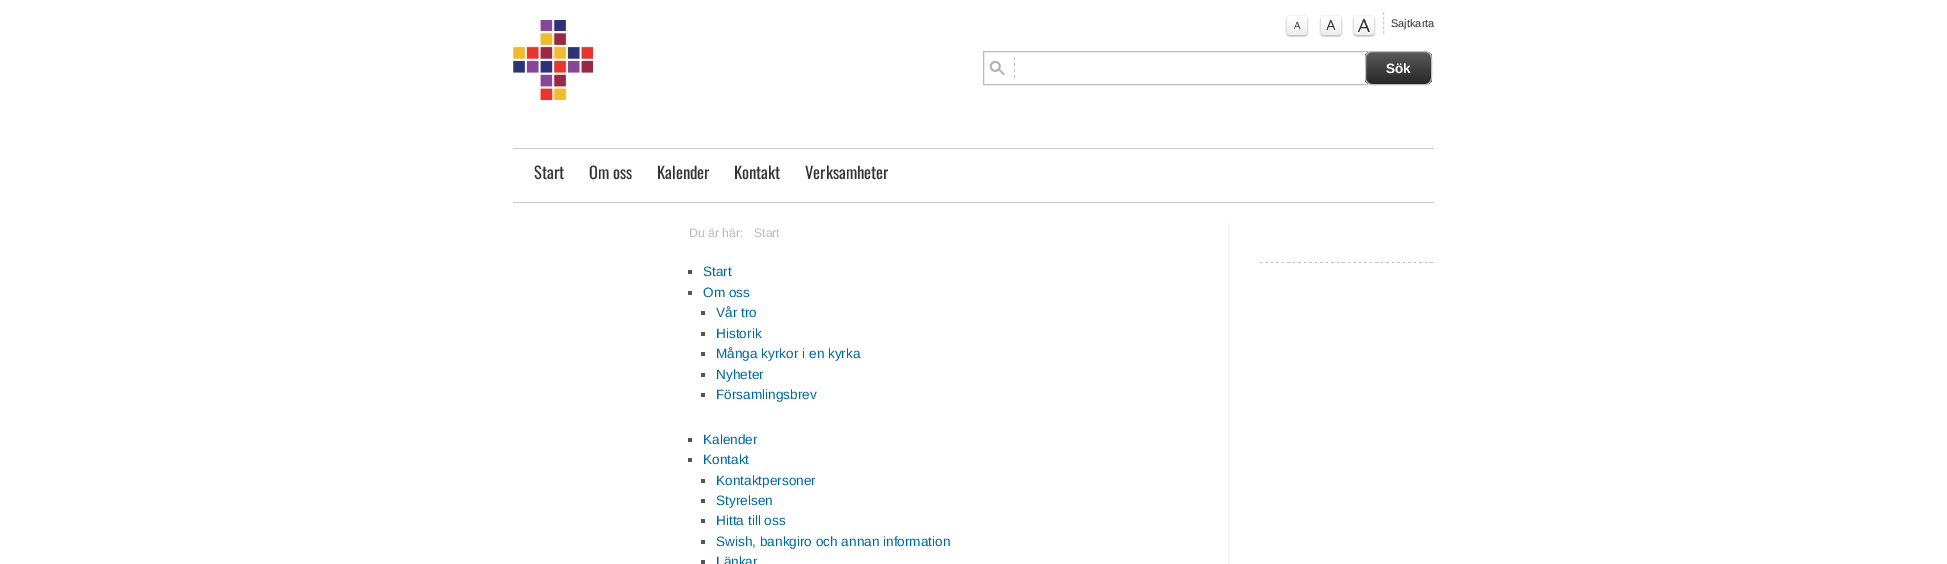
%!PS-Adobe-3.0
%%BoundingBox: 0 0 1947 564
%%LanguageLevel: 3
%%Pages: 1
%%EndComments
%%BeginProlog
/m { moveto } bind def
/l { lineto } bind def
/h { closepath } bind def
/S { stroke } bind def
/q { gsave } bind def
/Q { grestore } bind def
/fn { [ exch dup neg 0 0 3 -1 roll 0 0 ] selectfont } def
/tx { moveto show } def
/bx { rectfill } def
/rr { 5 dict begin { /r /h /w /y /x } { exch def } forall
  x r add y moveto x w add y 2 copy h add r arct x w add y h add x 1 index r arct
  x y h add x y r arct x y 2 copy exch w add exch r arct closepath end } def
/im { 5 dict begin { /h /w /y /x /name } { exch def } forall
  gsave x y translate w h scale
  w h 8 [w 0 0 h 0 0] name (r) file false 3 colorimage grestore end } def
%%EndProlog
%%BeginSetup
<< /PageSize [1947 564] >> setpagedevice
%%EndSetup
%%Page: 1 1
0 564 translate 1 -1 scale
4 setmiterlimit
1 setgray
0 0 1947 564 bx
(image0.raw) 513 20 80 80 im
(image1.raw) 1285 15 24 22 im
(image2.raw) 1319 15 24 22 im
(image3.raw) 1352 15 24 22 im
0.8 setgray
[3 1.75] 0 setdash
1383.5 12 m 1383.5 34 l S
/LiberationSans-Regular 11 fn
0.2 setgray
(Sajtkarta) 1391 27 tx
(image4.raw) 989 57 26 21 im
0.741 setgray
[] 0 setdash
983.5 51.5 384 33 rectstroke
q
1365 51 67 34 7 rr clip newpath
q 1365 52 m 1432 52 l 1432 84 l 1365 84 l h clip newpath
<< /ShadingType 2 /ColorSpace /DeviceRGB /Coords [1399 52 1399 84] /Extend [true true] /Function << /FunctionType 2 /Domain [0 1] /C0 [0.353 0.353 0.353] /C1 [0.153 0.153 0.153] /N 1 >> >> shfill Q
Q
1365.5 51.5 66 33 6.5 rr S
/LiberationSans-Bold 13.6 fn
1 setgray
(Sök) 1386 73 tx
0.8 setgray
513 148 921 1 bx
513 202 921 1 bx
/Oswald-Regular 16.5 fn
0.2 setgray
(Start) 534 179 tx
(Om oss) 589 179 tx
(Kalender) 657 179 tx
(Kontakt) 734 179 tx
(Verksamheter) 805 179 tx
0.937 setgray
1228 223 1 341 bx
/LiberationSans-Regular 12.25 fn
0.733 setgray
(Du är här:) 689 237 tx
(Start) 754 237 tx
(image5.raw) 1260 262 173 1 im
0.329 setgray
688 270 4 4 bx
/LiberationSans-Regular 13.6 fn
0 0.408 0.627 setrgbcolor
(Start) 703 276 tx
0.329 setgray
688 291 4 4 bx
0 0.408 0.627 setrgbcolor
(Om oss) 703 297 tx
0.329 setgray
701 311 4 4 bx
0 0.408 0.627 setrgbcolor
(Vår tro) 716 317 tx
0.329 setgray
701 332 4 4 bx
0 0.408 0.627 setrgbcolor
(Historik) 716 338 tx
0.329 setgray
701 352 4 4 bx
0 0.408 0.627 setrgbcolor
(Många kyrkor i en kyrka) 716 358 tx
0.329 setgray
701 373 4 4 bx
0 0.408 0.627 setrgbcolor
(Nyheter) 716 379 tx
0.329 setgray
701 393 4 4 bx
0 0.408 0.627 setrgbcolor
(Församlingsbrev) 716 399 tx
0.329 setgray
688 438 4 4 bx
0 0.408 0.627 setrgbcolor
(Kalender) 703 444 tx
0.329 setgray
688 458 4 4 bx
0 0.408 0.627 setrgbcolor
(Kontakt) 703 464 tx
0.329 setgray
701 479 4 4 bx
0 0.408 0.627 setrgbcolor
(Kontaktpersoner) 716 485 tx
0.329 setgray
701 499 4 4 bx
0 0.408 0.627 setrgbcolor
(Styrelsen) 716 505 tx
0.329 setgray
701 519 4 4 bx
0 0.408 0.627 setrgbcolor
(Hitta till oss) 716 525 tx
0.329 setgray
701 540 4 4 bx
0 0.408 0.627 setrgbcolor
(Swish, bankgiro och annan information) 716 546 tx
0.329 setgray
701 560 4 4 bx
0 0.408 0.627 setrgbcolor
(Länkar) 716 566 tx
showpage
%%EOF
